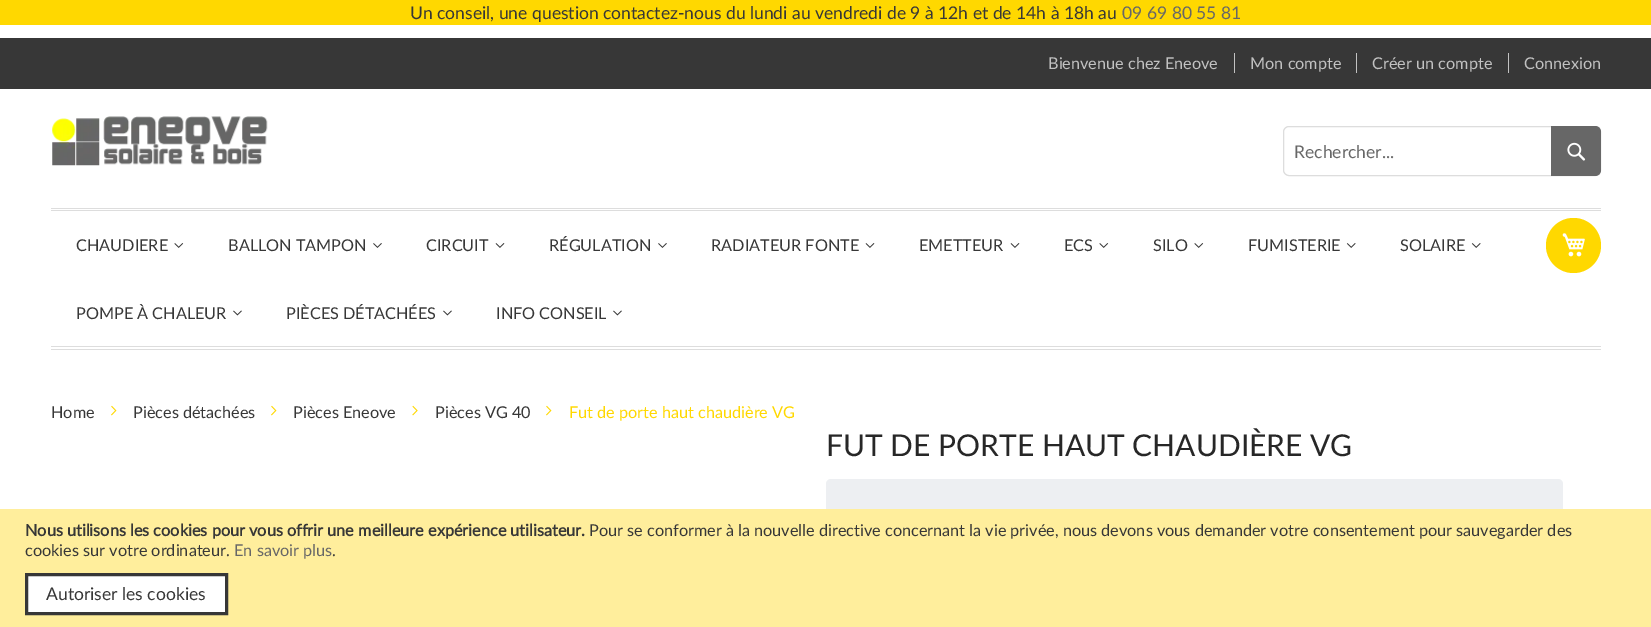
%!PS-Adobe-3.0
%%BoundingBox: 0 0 1651 627
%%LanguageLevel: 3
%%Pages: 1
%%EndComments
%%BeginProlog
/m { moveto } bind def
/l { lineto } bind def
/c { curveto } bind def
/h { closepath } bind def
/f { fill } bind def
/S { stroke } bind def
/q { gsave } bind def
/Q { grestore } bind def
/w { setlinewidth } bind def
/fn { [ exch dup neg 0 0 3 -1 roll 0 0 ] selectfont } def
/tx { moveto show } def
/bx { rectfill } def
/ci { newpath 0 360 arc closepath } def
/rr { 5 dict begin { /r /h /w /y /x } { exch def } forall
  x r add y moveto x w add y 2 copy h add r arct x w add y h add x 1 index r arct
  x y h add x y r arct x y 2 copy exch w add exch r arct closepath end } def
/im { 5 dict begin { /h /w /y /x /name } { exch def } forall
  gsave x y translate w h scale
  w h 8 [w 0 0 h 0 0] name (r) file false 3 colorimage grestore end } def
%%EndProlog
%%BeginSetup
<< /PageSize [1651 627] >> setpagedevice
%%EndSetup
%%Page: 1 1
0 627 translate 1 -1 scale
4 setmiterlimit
1 setgray
0 0 1651 627 bx
1 0.847 0 setrgbcolor
0 0 1651 25 bx
/Lato-Regular 17.5 fn
0.216 setgray
(Un conseil, une question contactez-nous du lundi au vendredi de 9 à 12h et de 14h à 18h au) 410 19 tx
0.404 setgray
(09 69 80 55 81) 1122 19 tx
0.216 setgray
0 38 1651 51 bx
/Lato-Regular 16.25 fn
0.761 setgray
(Bienvenue chez Eneove) 1048 69 tx
1234 53 1 20 bx
(Mon compte) 1250 69 tx
1356 53 1 20 bx
(Créer un compte) 1372 69 tx
1508 53 1 20 bx
(Connexion) 1524 69 tx
(image0.raw) 52 116 216 50 im
0.867 setgray
1283.5 126.5 317 49 5.5 rr S
/Lato-Regular 17.5 fn
0.404 setgray
(Rechercher...) 1294 158 tx
1551 126 m 1595 126 l 1598.5 126 1601 128.5 1601 132 c 1601 170 l 1601 173.5 1598.5 176 1595 176 c 1551 176 l h f
(image1.raw) 1567 142 19 19 im
1 0.847 0 setrgbcolor
1573.5 245.5 27.5 ci f
(image2.raw) 1562 233 23 24 im
0.867 setgray
51 208 1550 1 bx
51 210 1550 1 bx
51 346 1550 1 bx
51 349 1550 1 bx
/Lato-Regular 16.25 fn
0.216 setgray
(CHAUDIERE) 76 251 tx
(image3.raw) 174 243 10 5 im
(BALLON TAMPON) 228 251 tx
(image4.raw) 373 243 9 5 im
(CIRCUIT) 426 251 tx
(image5.raw) 495 243 10 5 im
(RÉGULATION) 549 251 tx
(image4.raw) 658 243 9 5 im
(RADIATEUR FONTE) 711 251 tx
(image5.raw) 865 243 10 5 im
(EMETTEUR) 919 251 tx
(image5.raw) 1010 243 10 5 im
(ECS) 1064 251 tx
(image3.raw) 1099 243 10 5 im
(SILO) 1153 251 tx
(image3.raw) 1194 243 10 5 im
(FUMISTERIE) 1248 251 tx
(image6.raw) 1346 243 10 5 im
(SOLAIRE) 1400 251 tx
(image6.raw) 1471 243 10 5 im
(POMPE À CHALEUR) 76 319 tx
(image7.raw) 233 310 9 6 im
(PIÈCES DÉTACHÉES) 286 319 tx
(image7.raw) 443 310 9 6 im
(INFO CONSEIL) 496 319 tx
(image7.raw) 613 310 9 6 im
(Home) 51 418 tx
(image8.raw) 111 405 6 11 im
(Pièces détachées) 133 418 tx
(image8.raw) 271 405 6 11 im
(Pièces Eneove) 293 418 tx
(image9.raw) 412 405 6 11 im
(Pièces VG 40) 435 418 tx
(image8.raw) 546 405 6 11 im
1 0.847 0 setrgbcolor
(Fut de porte haut chaudière VG) 569 418 tx
/Lato-Regular 30 fn
0.153 setgray
(FUT DE PORTE HAUT CHAUDIÈRE VG) 826 456 tx
0.929 0.937 0.949 setrgbcolor
826 479 737 85 5 rr f
1 0.933 0.612 setrgbcolor
0 509 1651 118 bx
/Lato-Bold 16.25 fn
0.216 setgray
(Nous utilisons les cookies pour vous offrir une meilleure expérience utilisateur.) 25 536 tx
/Lato-Regular 16.25 fn
(Pour se conformer à la nouvelle directive concernant la vie privée, nous devons vous demander votre consentement pour sauvegarder des) 589 536 tx
(cookies sur votre ordinateur.) 25 556 tx
0.404 setgray
(En savoir plus) 234 556 tx
0.216 setgray
(.) 332 556 tx
1 setgray
26.5 574.5 m 226.5 574.5 l 226.5 613.5 l 26.5 613.5 l h q f Q
0.216 setgray
3 w
S
/Lato-Regular 17.5 fn
(Autoriser les cookies) 46 600 tx
showpage
%%EOF
